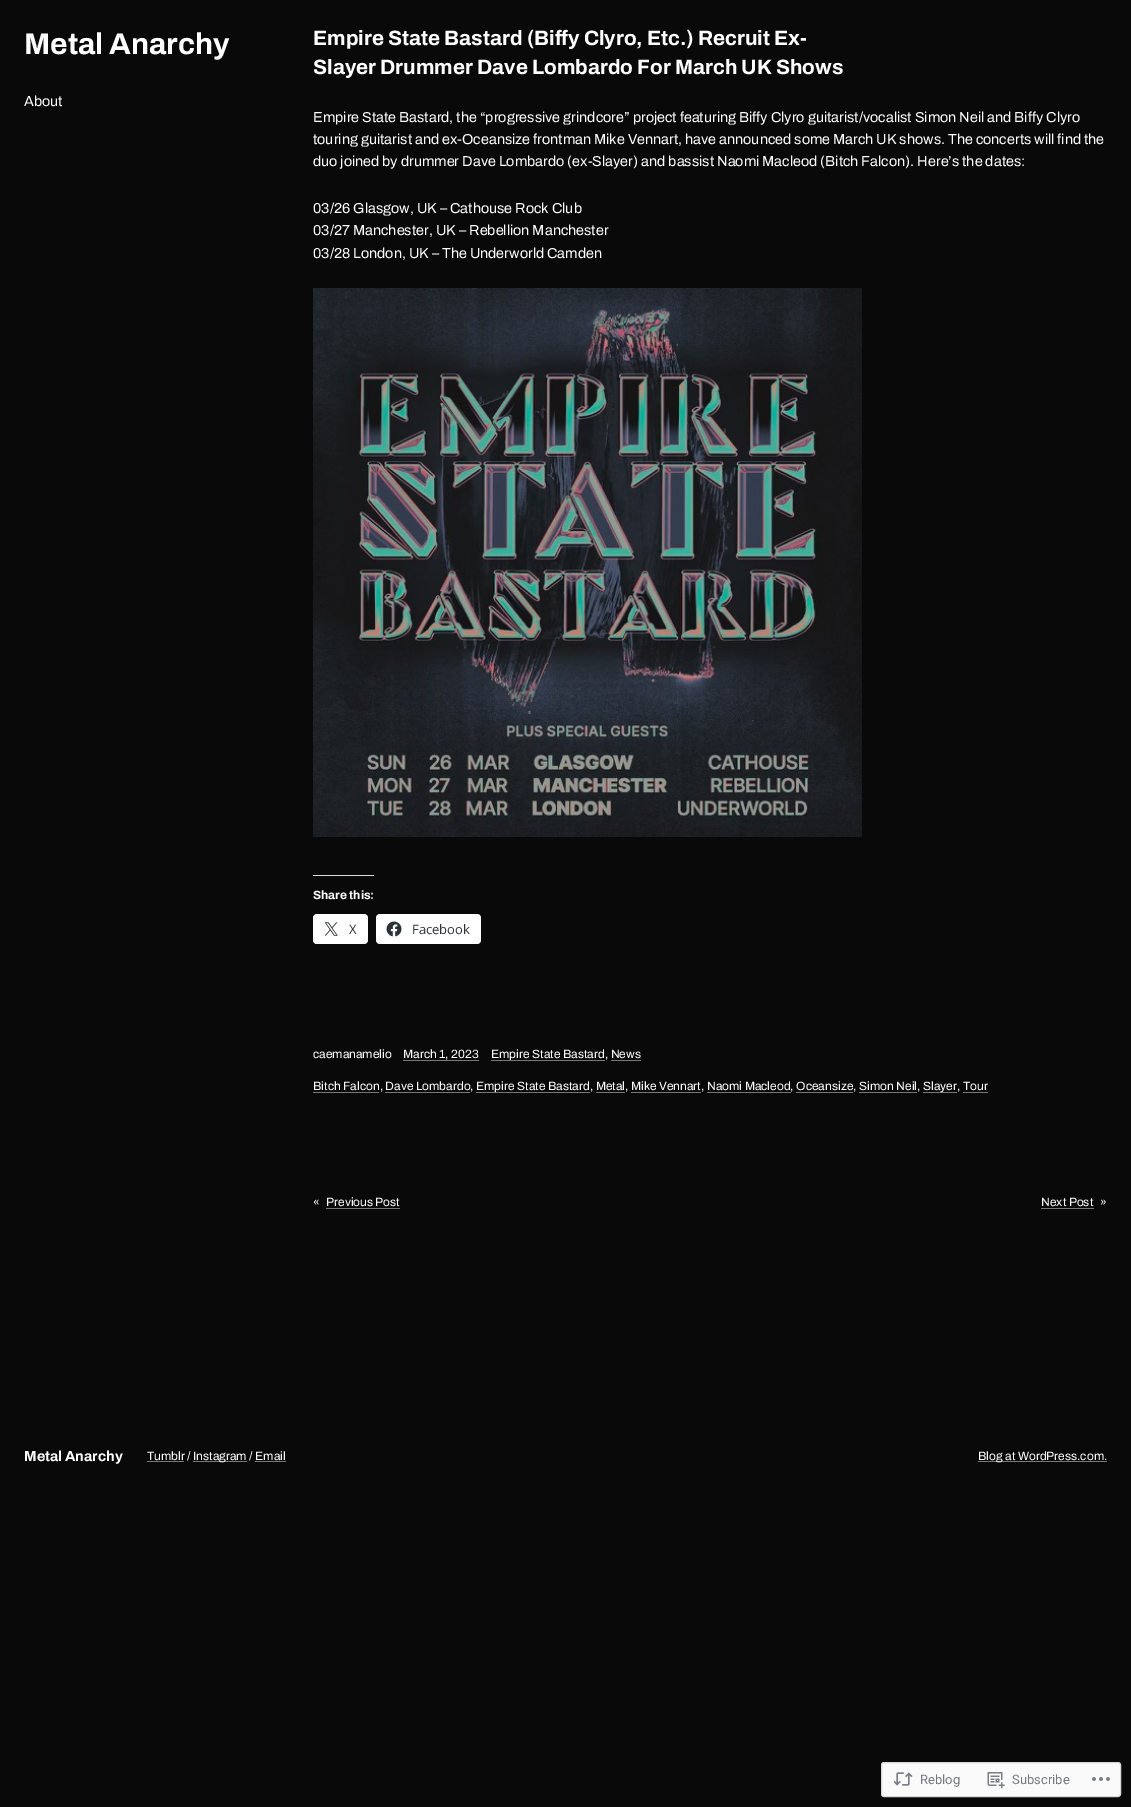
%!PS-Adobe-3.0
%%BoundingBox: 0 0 1131 1807
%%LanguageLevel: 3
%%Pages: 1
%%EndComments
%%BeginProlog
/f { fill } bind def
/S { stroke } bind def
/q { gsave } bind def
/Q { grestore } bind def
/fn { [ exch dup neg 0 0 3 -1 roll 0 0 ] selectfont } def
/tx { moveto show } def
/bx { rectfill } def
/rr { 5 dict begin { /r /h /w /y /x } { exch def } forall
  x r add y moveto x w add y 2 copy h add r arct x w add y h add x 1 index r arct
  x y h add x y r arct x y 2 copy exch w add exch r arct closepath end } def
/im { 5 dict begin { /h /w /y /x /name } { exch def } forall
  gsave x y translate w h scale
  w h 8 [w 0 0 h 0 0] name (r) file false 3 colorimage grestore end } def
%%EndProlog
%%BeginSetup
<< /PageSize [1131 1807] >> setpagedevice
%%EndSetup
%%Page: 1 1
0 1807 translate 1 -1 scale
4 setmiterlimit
0.035 setgray
0 0 1131 1807 bx
/Archivo-Bold 30 fn
1 setgray
(Metal Anarchy) 24 54 tx
/Archivo-Regular 14.4 fn
(About) 24 106 tx
/Archivo-Bold 20.75 fn
(Empire State Bastard \(Biffy Clyro, Etc.\) Recruit Ex-) 313 45 tx
(Slayer Drummer Dave Lombardo For March UK Shows) 313 74 tx
/Archivo-Regular 14.4 fn
(Empire State Bastard, the “progressive grindcore” project featuring Biffy Clyro guitarist/vocalist Simon Neil and Biffy Clyro) 313 122 tx
(touring guitarist and ex-Oceansize frontman Mike Vennart, have announced some March UK shows. The concerts will find the) 313 144 tx
(duo joined by drummer Dave Lombardo \(ex-Slayer\) and bassist Naomi Macleod \(Bitch Falcon\). Here’s the dates:) 313 166 tx
(03/26 Glasgow, UK – Cathouse Rock Club) 313 213 tx
(03/27 Manchester, UK – Rebellion Manchester) 313 235 tx
(03/28 London, UK – The Underworld Camden) 313 258 tx
(image0.raw) 313 288 549 549 im
0.863 0.863 0.871 setrgbcolor
313 875 61 1 bx
/Archivo-Bold 12 fn
1 setgray
(Share this:) 313 899 tx
313 914 55 30 4 rr f
(image1.raw) 324 922 14 14 im
/OpenSans-Regular 13 fn
0.173 0.2 0.22 setrgbcolor
(X) 349 934 tx
1 setgray
376 914 105 30 4 rr f
(image2.raw) 386 921 16 16 im
0.173 0.2 0.22 setrgbcolor
(Facebook) 412 934 tx
/Archivo-Regular 12 fn
1 setgray
(caemanamelio) 313 1058 tx
(March 1, 2023) 403 1058 tx
0.471 setgray
403 1060 76 1 bx
491 1060 114 1 bx
1 setgray
(Empire State Bastard, News) 491 1058 tx
0.471 setgray
611 1060 30 1 bx
1 setgray
(Bitch Falcon, Dave Lombardo,) 313 1090 tx
0.471 setgray
313 1092 66 1 bx
476 1092 114 1 bx
1 setgray
(Empire State Bastard, Metal, Mike Vennart, Naomi Macleod, Oceansize, Simon Neil,) 476 1090 tx
0.471 setgray
923 1092 34 1 bx
1 setgray
(Slayer, Tour) 923 1090 tx
0.471 setgray
385 1092 85 1 bx
596 1092 29 1 bx
631 1092 70 1 bx
707 1092 84 1 bx
796 1092 57 1 bx
859 1092 58 1 bx
963 1092 25 1 bx
1 setgray
(«) 313 1206 tx
(Previous Post) 326 1206 tx
0.471 setgray
326 1208 74 1 bx
1 setgray
(Next Post) 1041 1206 tx
0.471 setgray
1041 1208 53 1 bx
1 setgray
(») 1100 1206 tx
/Archivo-Bold 14.4 fn
(Metal Anarchy) 24 1461 tx
/Archivo-Regular 12 fn
(Tumblr /) 147 1460 tx
0.471 setgray
147 1461 37 1 bx
193 1461 54 1 bx
1 setgray
(Instagram / Email) 193 1460 tx
0.471 setgray
255 1461 31 1 bx
978 1461 129 1 bx
1 setgray
(Blog at WordPress.com.) 978 1460 tx
0.98 setgray
881.5 1762.5 239 34 2.5 rr q f Q
0.847 0.847 0.855 setrgbcolor
S
(image3.raw) 893 1772 20 14 im
/Roboto-Regular 13 fn
0.463 0.478 0.502 setrgbcolor
(Reblog) 920 1784 tx
(image4.raw) 987 1772 18 17 im
(Subscribe) 1012 1784 tx
(image5.raw) 1092 1777 18 4 im
showpage
%%EOF
